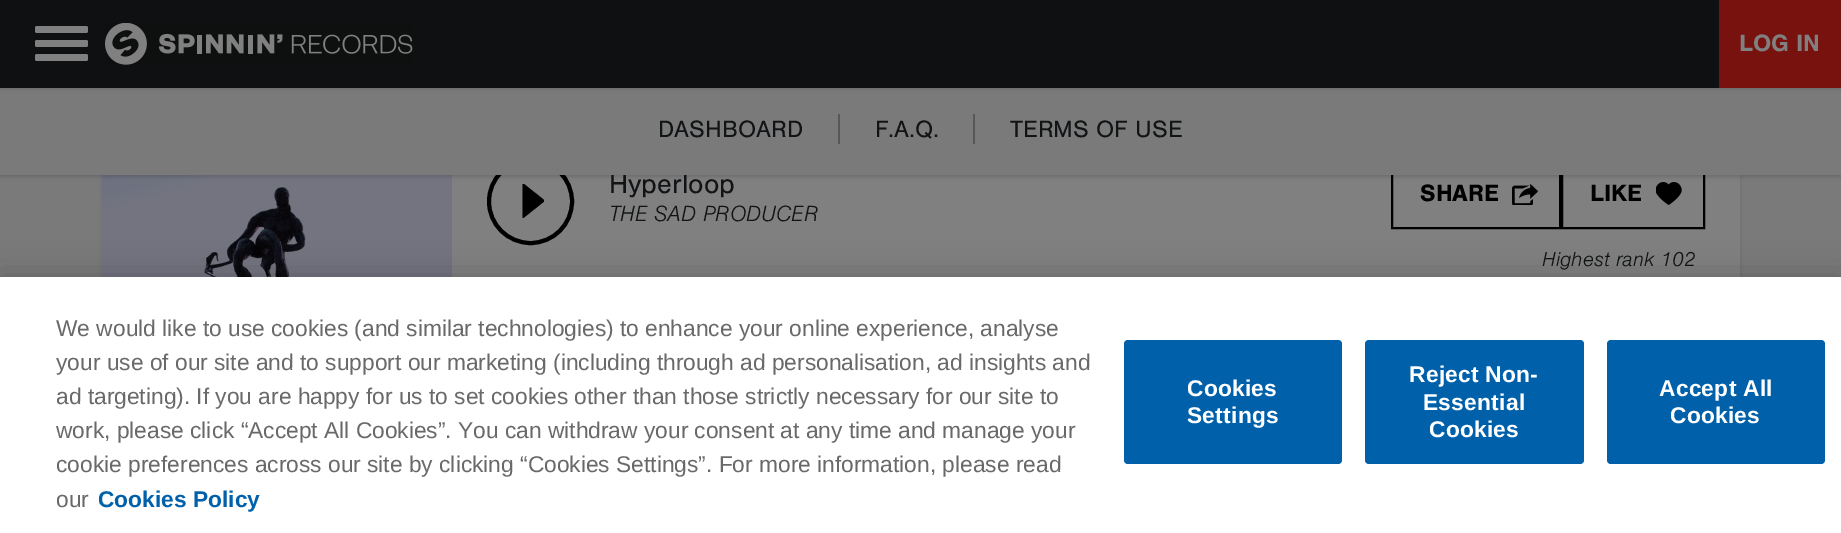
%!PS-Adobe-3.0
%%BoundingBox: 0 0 1841 533
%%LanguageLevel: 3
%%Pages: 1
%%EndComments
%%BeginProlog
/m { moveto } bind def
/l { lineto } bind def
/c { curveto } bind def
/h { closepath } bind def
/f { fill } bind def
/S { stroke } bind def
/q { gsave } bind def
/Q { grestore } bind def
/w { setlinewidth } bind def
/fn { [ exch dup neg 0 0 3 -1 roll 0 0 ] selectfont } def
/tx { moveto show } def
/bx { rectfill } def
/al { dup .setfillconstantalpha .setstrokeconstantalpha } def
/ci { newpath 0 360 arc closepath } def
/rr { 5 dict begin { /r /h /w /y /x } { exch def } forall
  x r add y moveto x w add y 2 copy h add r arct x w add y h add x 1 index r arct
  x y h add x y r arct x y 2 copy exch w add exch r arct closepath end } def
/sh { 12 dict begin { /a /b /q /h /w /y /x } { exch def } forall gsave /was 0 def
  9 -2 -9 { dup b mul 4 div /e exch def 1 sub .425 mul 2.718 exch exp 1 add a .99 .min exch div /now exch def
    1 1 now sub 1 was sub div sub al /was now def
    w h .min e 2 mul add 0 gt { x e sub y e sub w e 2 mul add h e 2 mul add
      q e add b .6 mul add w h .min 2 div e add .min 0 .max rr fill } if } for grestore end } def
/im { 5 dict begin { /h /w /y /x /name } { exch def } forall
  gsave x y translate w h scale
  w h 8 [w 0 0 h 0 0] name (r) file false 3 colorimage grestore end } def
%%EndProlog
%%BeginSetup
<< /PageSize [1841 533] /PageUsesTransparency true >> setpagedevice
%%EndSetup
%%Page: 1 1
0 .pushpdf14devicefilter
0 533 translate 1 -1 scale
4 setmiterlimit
0.478 setgray
0 0 1841 533 bx
0 setgray
102 124 1638 350 0 2 0.15 sh
0.502 setgray
452 175 1288 102 bx
0.463 setgray
451 175 1 102 bx
(image1.raw) 101 175 351 102 im
0 setgray
4 w
530.5 201.5 41.5 ci S
2 w
1392 159 168 69 rectstroke
1562 159 142 69 rectstroke
(image3.raw) 1656 182 26 23 im
0 89 1841 88 0 2 0.15 sh
/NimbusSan-Regular 28 fn
0.067 0.075 0.082 setrgbcolor
(Hyperloop) 609 193 tx
0.478 setgray
0 88 1841 87 bx
0 setgray
0 2 1841 87 0 2 0.15 sh
0.055 0.063 0.067 setrgbcolor
0 0 1719 88 bx
0.502 setgray
35 26 53 7 2 rr f
35 40 53 7 2 rr f
35 54 53 7 2 rr f
(image0.raw) 105 23 308 42 im
0.471 0.071 0.055 setrgbcolor
1719 0 122 88 bx
/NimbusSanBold-Bold 24.5 fn
0.502 setgray
(LOG IN) 1739 51 tx
/NimbusSan-Regular 24.5 fn
0.067 0.075 0.082 setrgbcolor
(DASHBOARD) 658 137 tx
0.341 setgray
838 114 2 30 bx
0.067 0.075 0.082 setrgbcolor
(F.A.Q.) 875 137 tx
0.341 setgray
973 114 2 30 bx
0.067 0.075 0.082 setrgbcolor
(TERMS OF USE) 1010 137 tx
q
516 184 28 35 rectclip
0 setgray
543.5 202 m 544.5 201.5 544.5 200.5 543.5 199.5 c 524 184 l 523 183.5 522.5 184 522.5 185 c 522.5 217 l 522.5 218 523 218.5 524 217.5 c h f
Q
/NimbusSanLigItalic-Italic 22.75 fn
(THE SAD PRODUCER) 609 221 tx
/NimbusSanBold-Bold 24.5 fn
0 setgray
(SHARE) 1420 201 tx
(image2.raw) 1512 184 26 21 im
(LIKE) 1590 201 tx
/NimbusSanLigItalic-Italic 21 fn
0.067 0.075 0.082 setrgbcolor
(Highest rank 102) 1542 266 tx
0 setgray
0 277 1841 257 0 16 0.2 sh
1 setgray
0 277 1841 256 bx
/LiberationSans-Regular 22.75 fn
0.412 setgray
(We would like to use cookies \(and similar technologies\) to enhance your online experience, analyse) 56 336 tx
(your use of our site and to support our marketing \(including through ad personalisation, ad insights and) 56 370 tx
(ad targeting\). If you are happy for us to set cookies other than those strictly necessary for our site to) 56 404 tx
(work, please click “Accept All Cookies”. You can withdraw your consent at any time and manage your) 56 438 tx
(cookie preferences across our site by clicking “Cookies Settings”. For more information, please read) 56 472 tx
(our) 56 507 tx
/LiberationSans-Bold 22.75 fn
0 0.38 0.667 setrgbcolor
(Cookies Policy) 98 507 tx
1124 340 218 124 4 rr f
1 setgray
1187 396 m 0.25 0 (Cookies) ashow
1187 423 m 0.25 0 (Settings) ashow
0 0.38 0.667 setrgbcolor
1365 340 219 124 4 rr f
1 setgray
1409 382 m 0.25 0 (Reject Non-) ashow
1423 410 m 0.25 0 (Essential) ashow
1429 437 m 0.25 0 (Cookies) ashow
0 0.38 0.667 setrgbcolor
1607 340 218 124 4 rr f
1 setgray
1659 396 m 0.25 0 (Accept All) ashow
1670 423 m 0.25 0 (Cookies) ashow
.poppdf14devicefilter showpage
%%EOF
